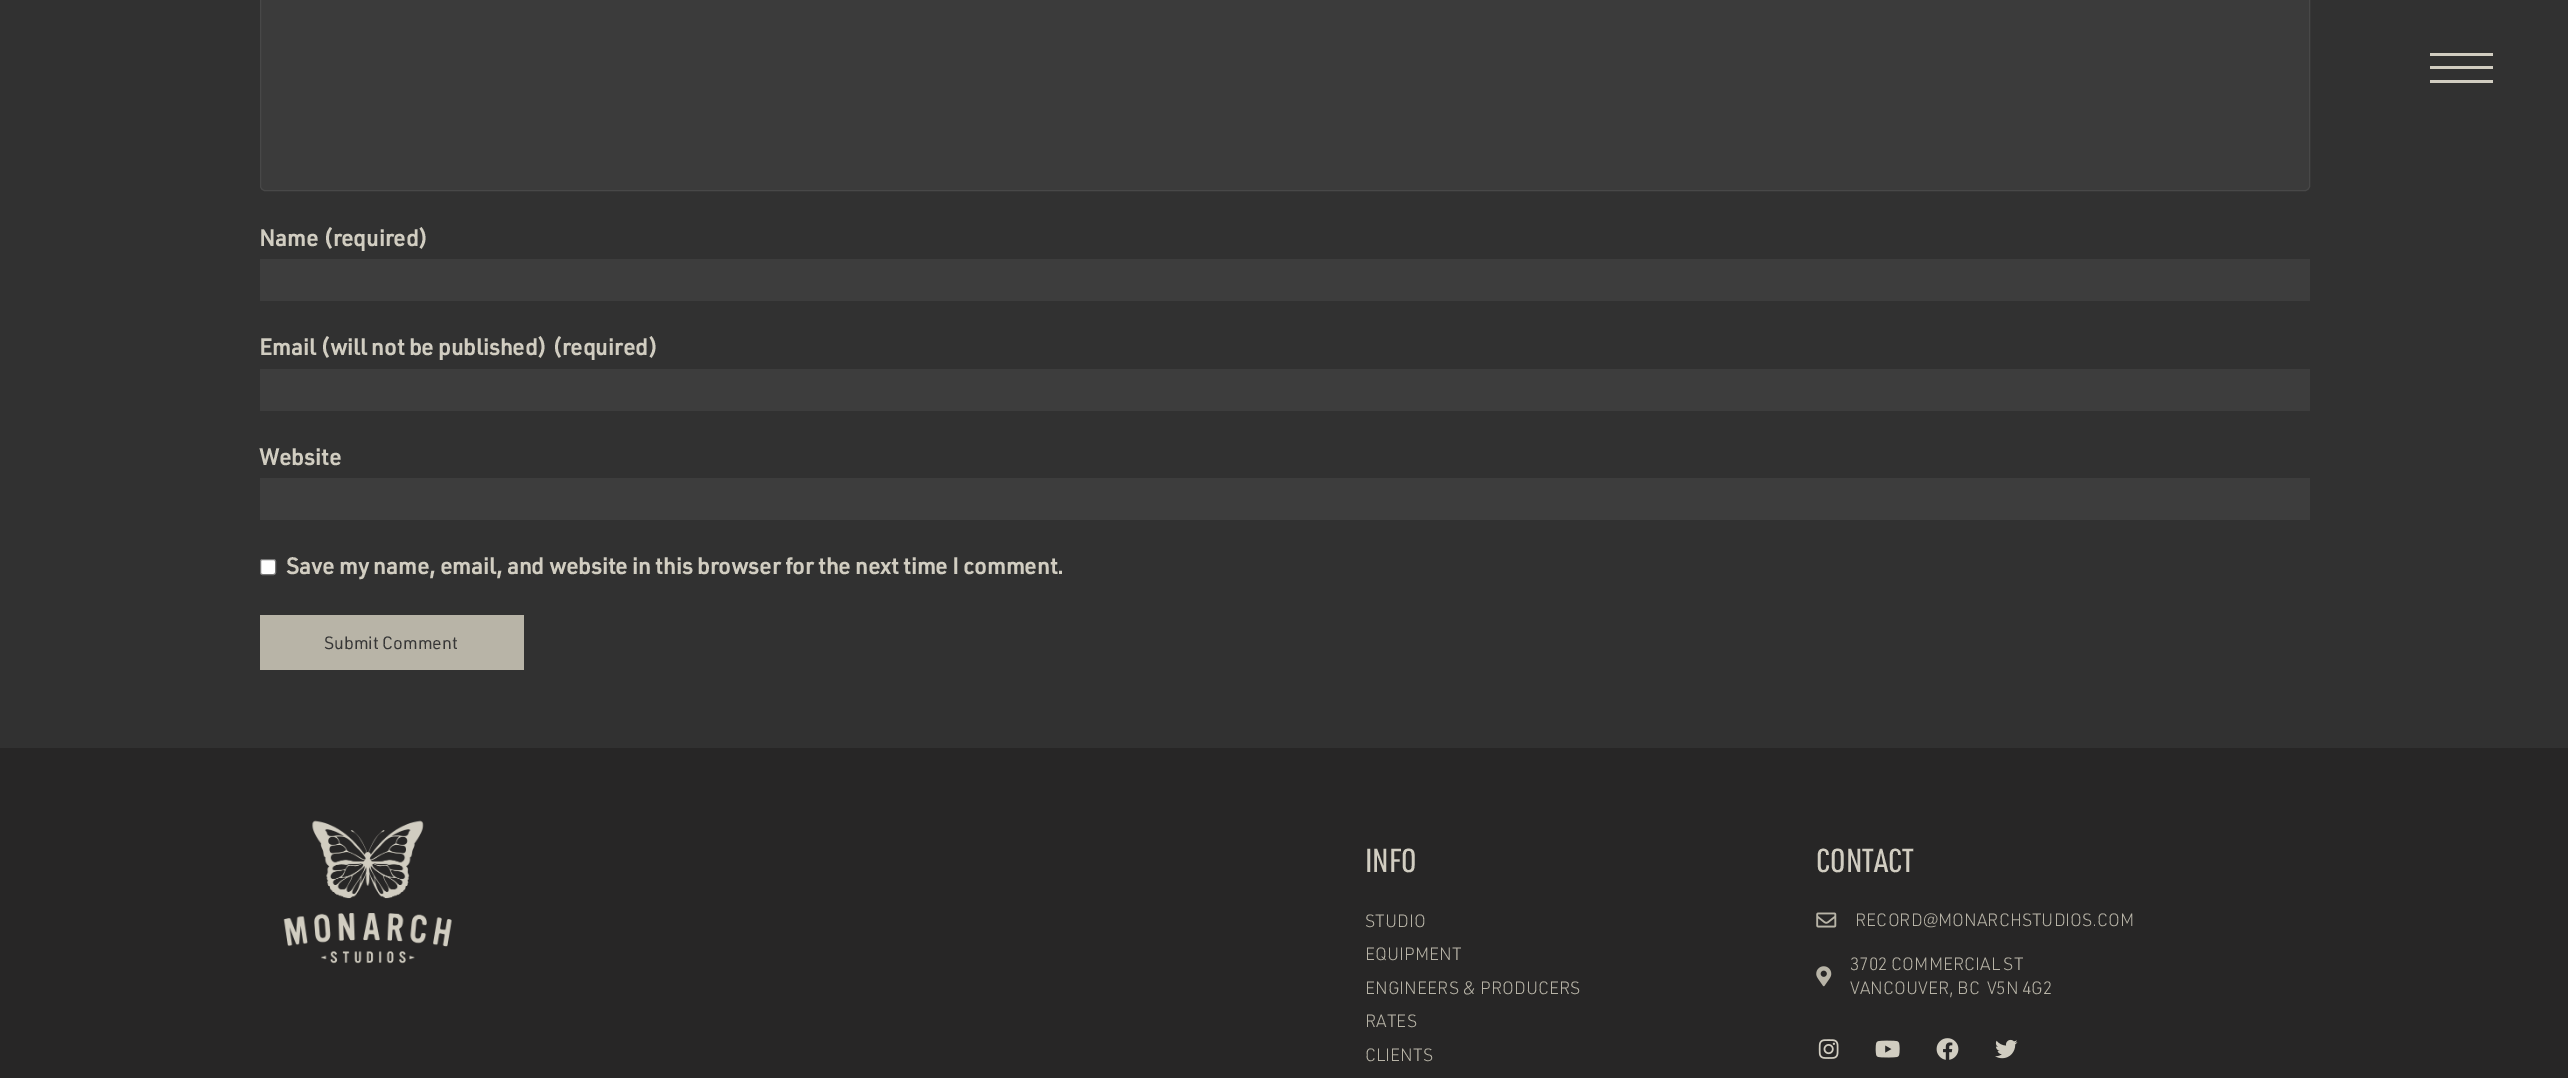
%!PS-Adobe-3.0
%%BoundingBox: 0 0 2568 1078
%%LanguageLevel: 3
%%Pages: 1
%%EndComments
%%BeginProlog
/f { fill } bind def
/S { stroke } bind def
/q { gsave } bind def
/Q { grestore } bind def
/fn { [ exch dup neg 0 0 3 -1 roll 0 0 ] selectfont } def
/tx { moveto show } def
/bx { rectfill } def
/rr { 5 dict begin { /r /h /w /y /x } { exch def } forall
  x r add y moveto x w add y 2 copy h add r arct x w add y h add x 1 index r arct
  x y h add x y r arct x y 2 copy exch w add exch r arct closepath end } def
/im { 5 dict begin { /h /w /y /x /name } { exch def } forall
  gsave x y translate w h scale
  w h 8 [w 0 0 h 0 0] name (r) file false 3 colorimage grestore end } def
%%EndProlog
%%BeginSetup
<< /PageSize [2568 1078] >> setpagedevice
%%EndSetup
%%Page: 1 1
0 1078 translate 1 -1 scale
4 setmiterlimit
0.192 setgray
0 0 2568 1078 bx
0.82 0.804 0.757 setrgbcolor
2430 66 63 3 bx
2430 53 63 3 bx
2430 80 63 3 bx
0.231 setgray
260.5 -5.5 2049 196 4.5 rr q f Q
0.282 setgray
S
/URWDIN-Bold 22.5 fn
0.82 0.804 0.757 setrgbcolor
(Name \(required\)) 259 246 tx
0.239 setgray
260 259 2050 42 bx
0.82 0.804 0.757 setrgbcolor
(Email \(will not be published\) \(required\)) 259 355 tx
0.239 setgray
260 369 2050 42 bx
0.82 0.804 0.757 setrgbcolor
(Website) 259 465 tx
0.239 setgray
260 478 2050 42 bx
1 setgray
260.5 559.5 15 15 2 rr q f Q
0.463 setgray
S
0.82 0.804 0.757 setrgbcolor
(Save my name, email, and website in this browser for the next time I comment.) 286 574 tx
0.722 0.706 0.655 setrgbcolor
260 615 264 55 bx
/URWDIN-Regular 17.5 fn
0.212 setgray
(Submit Comment) 324 649 tx
0.153 0.149 0.149 setrgbcolor
0 748 2568 330 bx
(image0.raw) 283 820 169 144 im
/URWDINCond-Medium 32.5 fn
0.82 0.804 0.757 setrgbcolor
(INFO) 1365 872 tx
/URWDIN-Light 17.5 fn
0.722 0.706 0.655 setrgbcolor
(STUDIO) 1365 927 tx
(EQUIPMENT) 1365 960 tx
(ENGINEERS & PRODUCERS) 1365 994 tx
(RATES) 1365 1027 tx
(CLIENTS) 1365 1061 tx
/URWDINCond-Medium 32.5 fn
0.82 0.804 0.757 setrgbcolor
(CONTACT) 1816 872 tx
(image1.raw) 1816 912 21 16 im
/URWDIN-Light 17.5 fn
0.722 0.706 0.655 setrgbcolor
(RECORD@MONARCHSTUDIOS.COM) 1855 926 tx
(image2.raw) 1816 966 16 21 im
(3702 COMMERCIAL ST) 1850 970 tx
(VANCOUVER, BC  V5N 4G2) 1850 994 tx
(image3.raw) 1818 1039 21 20 im
(image4.raw) 1875 1040 25 18 im
(image5.raw) 1936 1038 23 22 im
(image6.raw) 1995 1039 23 20 im
showpage
%%EOF
